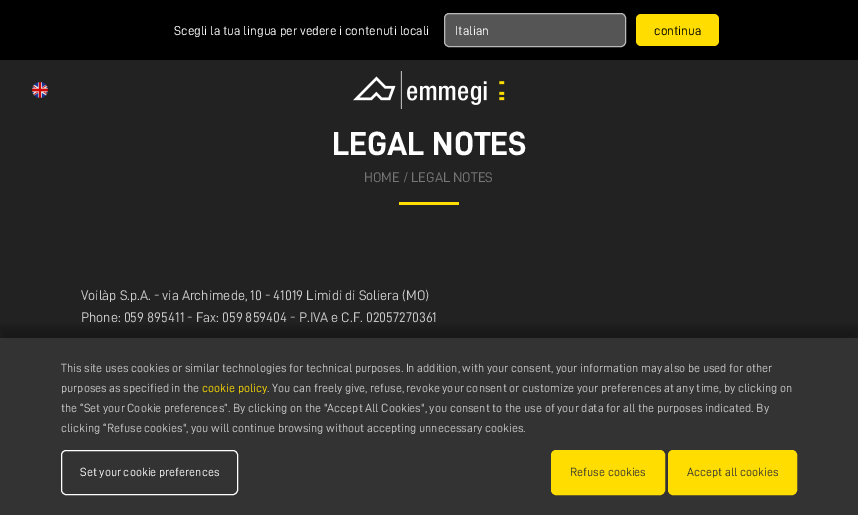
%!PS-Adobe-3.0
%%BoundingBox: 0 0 858 515
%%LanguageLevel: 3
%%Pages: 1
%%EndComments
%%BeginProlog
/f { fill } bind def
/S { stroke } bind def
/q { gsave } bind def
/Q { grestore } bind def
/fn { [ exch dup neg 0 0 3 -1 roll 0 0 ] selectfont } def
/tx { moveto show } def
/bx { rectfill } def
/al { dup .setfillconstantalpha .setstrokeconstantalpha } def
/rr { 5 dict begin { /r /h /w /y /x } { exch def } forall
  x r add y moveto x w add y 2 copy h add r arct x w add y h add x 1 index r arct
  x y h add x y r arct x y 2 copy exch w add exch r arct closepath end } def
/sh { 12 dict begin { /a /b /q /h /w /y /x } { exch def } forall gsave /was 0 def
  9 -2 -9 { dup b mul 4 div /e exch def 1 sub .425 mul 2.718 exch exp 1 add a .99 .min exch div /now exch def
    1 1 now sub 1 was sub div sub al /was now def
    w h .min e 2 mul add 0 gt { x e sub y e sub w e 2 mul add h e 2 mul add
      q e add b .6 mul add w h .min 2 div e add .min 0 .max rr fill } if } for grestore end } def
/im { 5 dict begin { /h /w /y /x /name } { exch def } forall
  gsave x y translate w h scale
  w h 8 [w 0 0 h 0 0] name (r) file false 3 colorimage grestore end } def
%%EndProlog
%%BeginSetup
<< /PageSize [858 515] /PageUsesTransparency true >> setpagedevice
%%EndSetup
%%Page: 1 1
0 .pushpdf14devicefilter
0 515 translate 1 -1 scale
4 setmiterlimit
0.133 setgray
0 0 858 515 bx
0 setgray
0 0 858 60 bx
/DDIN-Regular 13 fn
1 setgray
(Scegli la tua lingua per vedere i contenuti locali) 174 35 tx
0.333 setgray
444.5 13.5 181 33 4.5 rr q f Q
0.725 setgray
S
1 setgray
(Italian) 455 35 tx
1 0.867 0 setrgbcolor
636 14 83 32 5 rr f
0 setgray
(continua) 654 35 tx
(image0.raw) 32 82 16 16 im
(image1.raw) 353 71 152 38 im
/DDIN-Bold 33.5 fn
1 setgray
(LEGAL NOTES) 332 155 tx
/DDIN-Regular 14 fn
0.467 setgray
(HOME / LEGAL NOTES) 364 182 tx
1 0.867 0 setrgbcolor
399 202 60 3 bx
0.8 setgray
(Voilàp S.p.A. - via Archimede, 10 - 41019 Limidi di Soliera \(MO\)) 81 300 tx
(Phone: 059 895411 - Fax: 059 859404 - P.IVA e C.F. 02057270361) 81 322 tx
0 setgray
-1 327 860 179 0 5 0.3 sh
0.2 setgray
0 338 858 177 bx
/DDIN-Regular 12 fn
0.8 setgray
(This site uses cookies or similar technologies for technical purposes. In addition, with your consent, your information may also be used for other) 61 372 tx
(purposes as specified in the) 61 392 tx
1 0.867 0 setrgbcolor
(cookie policy) 202 392 tx
0.8 setgray
(. You can freely give, refuse, revoke your consent or customize your preferences at any time, by clicking on) 267 392 tx
(the “Set your Cookie preferences”. By clicking on the "Accept All Cookies", you consent to the use of your data for all the purposes indicated. By) 61 412 tx
(clicking “Refuse cookies", you will continue browsing without accepting unnecessary cookies.) 61 432 tx
1 setgray
61.5 450.5 176 44 4.5 rr S
(Set your cookie preferences) 80 476 tx
1 0.867 0 setrgbcolor
551.5 450.5 113 44 4.5 rr q f Q
S
0.2 setgray
(Refuse cookies) 570 476 tx
1 0.867 0 setrgbcolor
668.5 450.5 128 44 4.5 rr q f Q
S
0.2 setgray
(Accept all cookies) 687 476 tx
.poppdf14devicefilter showpage
%%EOF
